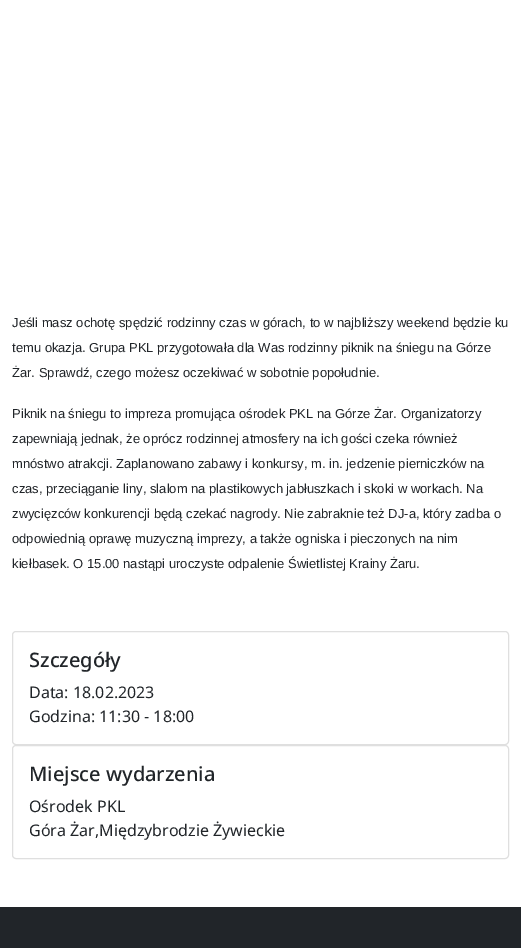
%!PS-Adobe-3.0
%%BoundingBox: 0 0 521 948
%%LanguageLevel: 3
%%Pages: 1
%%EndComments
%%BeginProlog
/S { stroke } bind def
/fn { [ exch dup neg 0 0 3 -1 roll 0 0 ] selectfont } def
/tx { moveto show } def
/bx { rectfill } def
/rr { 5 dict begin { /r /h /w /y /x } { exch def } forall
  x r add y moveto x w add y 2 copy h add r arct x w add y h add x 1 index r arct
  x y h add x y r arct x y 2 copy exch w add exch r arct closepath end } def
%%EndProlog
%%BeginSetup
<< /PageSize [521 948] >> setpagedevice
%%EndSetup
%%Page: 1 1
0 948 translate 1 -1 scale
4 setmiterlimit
1 setgray
0 0 521 948 bx
/LiberationSans-Regular 13 fn
0.129 0.145 0.161 setrgbcolor
(Jeśli masz ochotę spędzić rodzinny czas w górach, to w najbliższy weekend będzie ku) 12 327 tx
(temu okazja. Grupa PKL przygotowała dla Was rodzinny piknik na śniegu na Górze) 12 352 tx
(Żar. Sprawdź, czego możesz oczekiwać w sobotnie popołudnie.) 12 377 tx
(Piknik na śniegu to impreza promująca ośrodek PKL na Górze Żar. Organizatorzy) 12 418 tx
(zapewniają jednak, że oprócz rodzinnej atmosfery na ich gości czeka również) 12 443 tx
(mnóstwo atrakcji. Zaplanowano zabawy i konkursy, m. in. jedzenie pierniczków na) 12 468 tx
(czas, przeciąganie liny, slalom na plastikowych jabłuszkach i skoki w workach. Na) 12 493 tx
(zwycięzców konkurencji będą czekać nagrody. Nie zabraknie też DJ-a, który zadba o) 12 518 tx
(odpowiednią oprawę muzyczną imprezy, a także ogniska i pieczonych na nim) 12 543 tx
(kiełbasek. O 15.00 nastąpi uroczyste odpalenie Świetlistej Krainy Żaru.) 12 568 tx
0.875 setgray
12.5 631.5 496 113 3.5 rr S
/NotoSans-Medium 20 fn
0.129 0.145 0.161 setrgbcolor
(Szczegóły) 29 667 tx
/NotoSans-Regular 16 fn
(Data: 18.02.2023) 29 698 tx
(Godzina: 11:30 - 18:00) 29 722 tx
0.875 setgray
12.5 745.5 496 113 3.5 rr S
/NotoSans-Medium 20 fn
0.129 0.145 0.161 setrgbcolor
(Miejsce wydarzenia) 29 781 tx
/NotoSans-Regular 16 fn
(Ośrodek PKL) 29 812 tx
(Góra Żar,Międzybrodzie Żywieckie) 29 836 tx
0 907 521 41 bx
showpage
%%EOF
